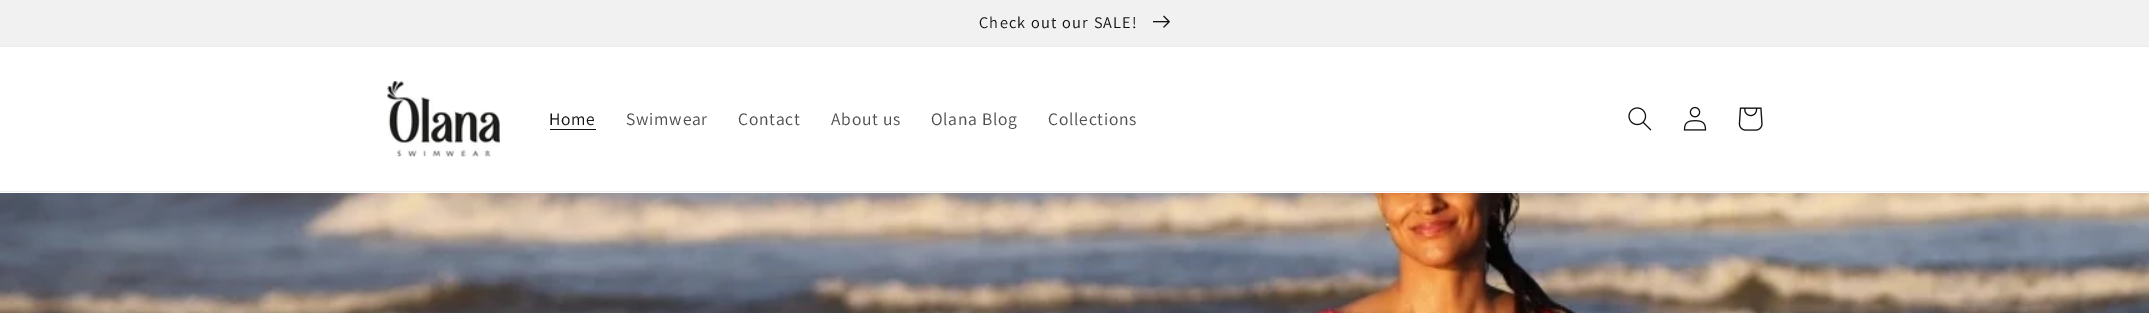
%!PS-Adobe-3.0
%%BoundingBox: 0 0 2149 313
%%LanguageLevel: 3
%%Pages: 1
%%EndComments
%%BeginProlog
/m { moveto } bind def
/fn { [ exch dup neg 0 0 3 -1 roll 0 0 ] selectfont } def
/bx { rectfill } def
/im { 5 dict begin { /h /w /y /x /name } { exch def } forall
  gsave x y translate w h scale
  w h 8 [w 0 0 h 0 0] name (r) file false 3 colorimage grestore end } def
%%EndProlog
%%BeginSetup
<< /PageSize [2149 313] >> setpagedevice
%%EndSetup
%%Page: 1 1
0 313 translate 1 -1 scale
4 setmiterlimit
1 setgray
0 0 2149 313 bx
0.925 setgray
0 46 2149 1 bx
0.945 setgray
0 0 2149 46 bx
/Assistant-Regular 16.25 fn
0.071 setgray
979 28 m 1.25 0 (Check out our SALE!) ashow
(image0.raw) 1153 15 17 13 im
0.925 setgray
0 191 2149 1 bx
(image1.raw) 387 81 113 76 im
/Assistant-Regular 17.5 fn
0.071 setgray
549 125 m 0.75 0 (Home) ashow
550 129 46 1 bx
0.302 setgray
626 125 m 0.75 0 (Swimwear) ashow
738 125 m 0.75 0 (Contact) ashow
831 125 m 0.75 0 (About us) ashow
931 125 m 0.75 0 (Olana Blog) ashow
1048 125 m 0.75 0 (Collections) ashow
(image2.raw) 1628 107 24 24 im
(image3.raw) 1683 106 24 25 im
(image4.raw) 1738 107 25 24 im
(image5.raw) 0 193 2149 120 im
showpage
%%EOF
